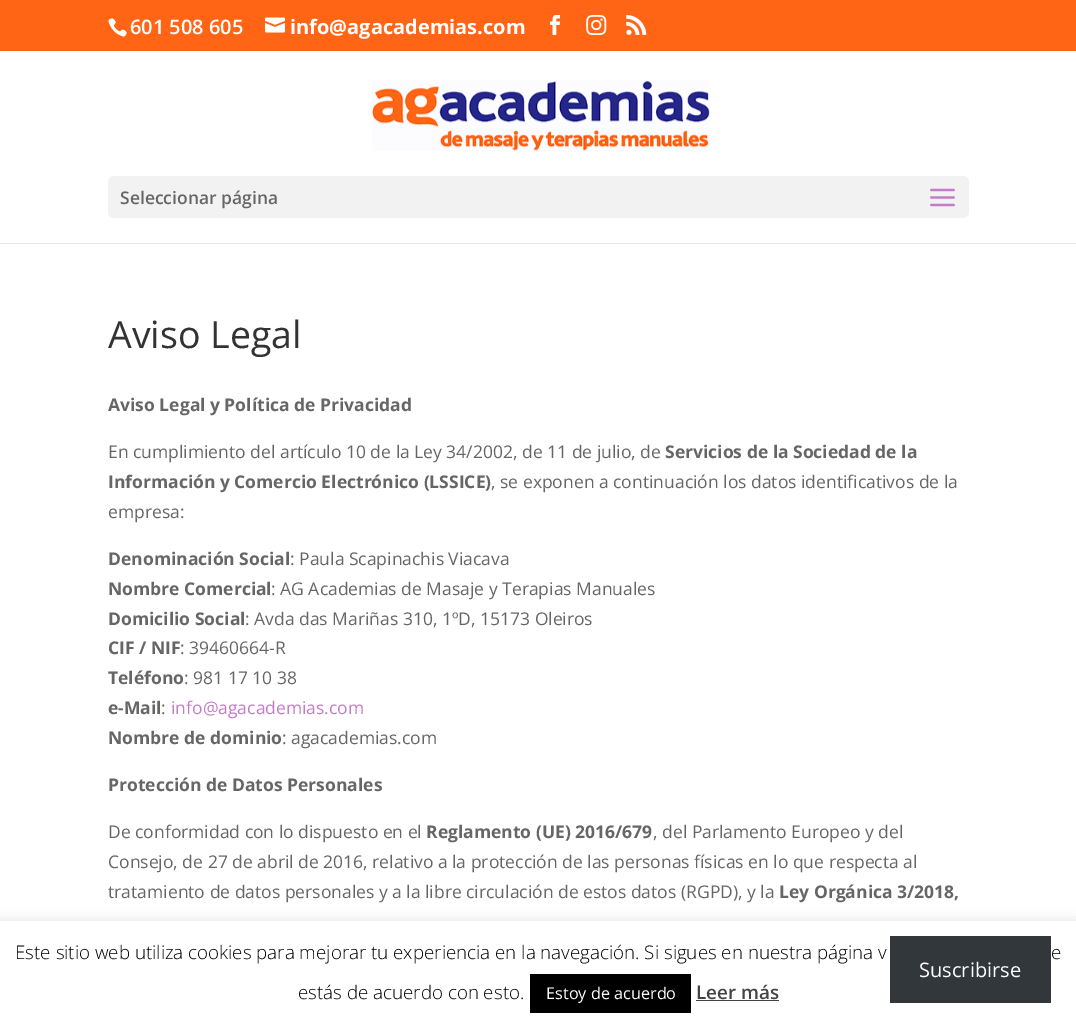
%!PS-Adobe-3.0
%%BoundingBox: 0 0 1076 1027
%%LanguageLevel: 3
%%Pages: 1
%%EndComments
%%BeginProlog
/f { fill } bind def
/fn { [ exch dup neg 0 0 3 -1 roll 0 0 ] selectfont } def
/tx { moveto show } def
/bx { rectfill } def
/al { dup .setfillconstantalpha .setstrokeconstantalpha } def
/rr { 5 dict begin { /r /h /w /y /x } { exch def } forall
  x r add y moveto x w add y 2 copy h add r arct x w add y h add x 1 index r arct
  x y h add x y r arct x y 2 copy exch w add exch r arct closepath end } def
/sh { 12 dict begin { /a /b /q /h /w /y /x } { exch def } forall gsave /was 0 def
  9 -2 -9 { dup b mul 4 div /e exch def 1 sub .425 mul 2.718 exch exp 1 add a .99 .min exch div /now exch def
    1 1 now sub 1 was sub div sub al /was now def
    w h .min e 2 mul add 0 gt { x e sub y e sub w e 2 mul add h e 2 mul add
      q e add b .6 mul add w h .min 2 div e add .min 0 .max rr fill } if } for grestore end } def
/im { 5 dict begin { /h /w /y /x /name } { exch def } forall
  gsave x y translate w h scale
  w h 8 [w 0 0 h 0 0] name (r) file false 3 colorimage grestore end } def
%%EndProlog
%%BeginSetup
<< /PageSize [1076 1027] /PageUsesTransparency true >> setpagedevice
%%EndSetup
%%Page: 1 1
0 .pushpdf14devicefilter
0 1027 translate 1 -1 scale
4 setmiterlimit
1 setgray
0 0 1076 1027 bx
1 0.396 0.078 setrgbcolor
0 0 1076 51 bx
(image0.raw) 108 18 19 19 im
/OpenSans-SemiBold 20 fn
1 setgray
(601 508 605) 130 34 tx
(image1.raw) 265 17 20 16 im
/OpenSans-Bold 20 fn
(info@agacademias.com) 290 34 tx
(image2.raw) 550 15 10 20 im
(image3.raw) 586 15 21 20 im
(image4.raw) 626 15 21 20 im
0.902 setgray
0 243 1076 1 bx
(image5.raw) 372 80 338 71 im
0.949 setgray
108 176 861 42 6 rr f
/OpenSans-SemiBold 17.5 fn
0.4 setgray
(Seleccionar página) 120 204 tx
(image6.raw) 930 188 25 19 im
/OpenSans-Regular 37.5 fn
0.2 setgray
(Aviso Legal) 108 348 tx
/OpenSans-Bold 17.5 fn
0.4 setgray
(Aviso Legal y Política de Privacidad) 108 411 tx
/OpenSans-Regular 17.5 fn
(En cumplimiento del artículo 10 de la Ley 34/2002, de 11 de julio, de) 108 458 tx
/OpenSans-Bold 17.5 fn
(Servicios de la Sociedad de la) 665 458 tx
(Información y Comercio Electrónico \(LSSICE\)) 108 488 tx
/OpenSans-Regular 17.5 fn
(, se exponen a continuación los datos identificativos de la) 491 488 tx
(empresa:) 108 518 tx
/OpenSans-Bold 17.5 fn
(Denominación Social) 108 565 tx
/OpenSans-Regular 17.5 fn
(: Paula Scapinachis Viacava) 290 565 tx
/OpenSans-Bold 17.5 fn
(Nombre Comercial) 108 595 tx
/OpenSans-Regular 17.5 fn
(: AG Academias de Masaje y Terapias Manuales) 271 595 tx
/OpenSans-Bold 17.5 fn
(Domicilio Social) 108 625 tx
/OpenSans-Regular 17.5 fn
(: Avda das Mariñas 310, 1ºD, 15173 Oleiros) 245 625 tx
/OpenSans-Bold 17.5 fn
(CIF / NIF) 108 654 tx
/OpenSans-Regular 17.5 fn
(: 39460664-R) 180 654 tx
/OpenSans-Bold 17.5 fn
(Teléfono) 108 684 tx
/OpenSans-Regular 17.5 fn
(: 981 17 10 38) 184 684 tx
/OpenSans-Bold 17.5 fn
(e-Mail) 108 714 tx
/OpenSans-Regular 17.5 fn
(:) 161 714 tx
0.765 0.486 0.776 setrgbcolor
(info@agacademias.com) 171 714 tx
/OpenSans-Bold 17.5 fn
0.4 setgray
(Nombre de dominio) 108 744 tx
/OpenSans-Regular 17.5 fn
(: agacademias.com) 282 744 tx
/OpenSans-Bold 17.5 fn
(Protección de Datos Personales) 108 791 tx
/OpenSans-Regular 17.5 fn
(De conformidad con lo dispuesto en el) 108 838 tx
/OpenSans-Bold 17.5 fn
(Reglamento \(UE\) 2016/679) 426 838 tx
/OpenSans-Regular 17.5 fn
(, del Parlamento Europeo y del) 653 838 tx
(Consejo, de 27 de abril de 2016, relativo a la protección de las personas físicas en lo que respecta al) 108 868 tx
(tratamiento de datos personales y a la libre circulación de estos datos \(RGPD\), y la) 108 898 tx
/OpenSans-Bold 17.5 fn
(Ley Orgánica 3/2018,) 779 898 tx
0.675 0.671 0.671 setrgbcolor
0 920 1076 106 0 6 0.3 sh
1 setgray
0 921 1076 106 bx
/OpenSans-Light 18.75 fn
0 setgray
(Este sitio web utiliza cookies para mejorar tu experiencia en la navegación. Si sigues en nuestra página v) 15 959 tx
(e) 1051 959 tx
(estás de acuerdo con esto.) 298 999 tx
530 974 161 39 bx
/OpenSans-Regular 16.25 fn
1 setgray
(Estoy de acuerdo) 546 999 tx
/OpenSans-SemiBold 18.75 fn
0.267 setgray
(Leer más) 696 999 tx
696 1000 83 1 bx
0.196 0.216 0.235 setrgbcolor
890 936 161 67 bx
/OpenSans-Regular 20 fn
1 setgray
(Suscribirse) 919 977 tx
.poppdf14devicefilter showpage
%%EOF
